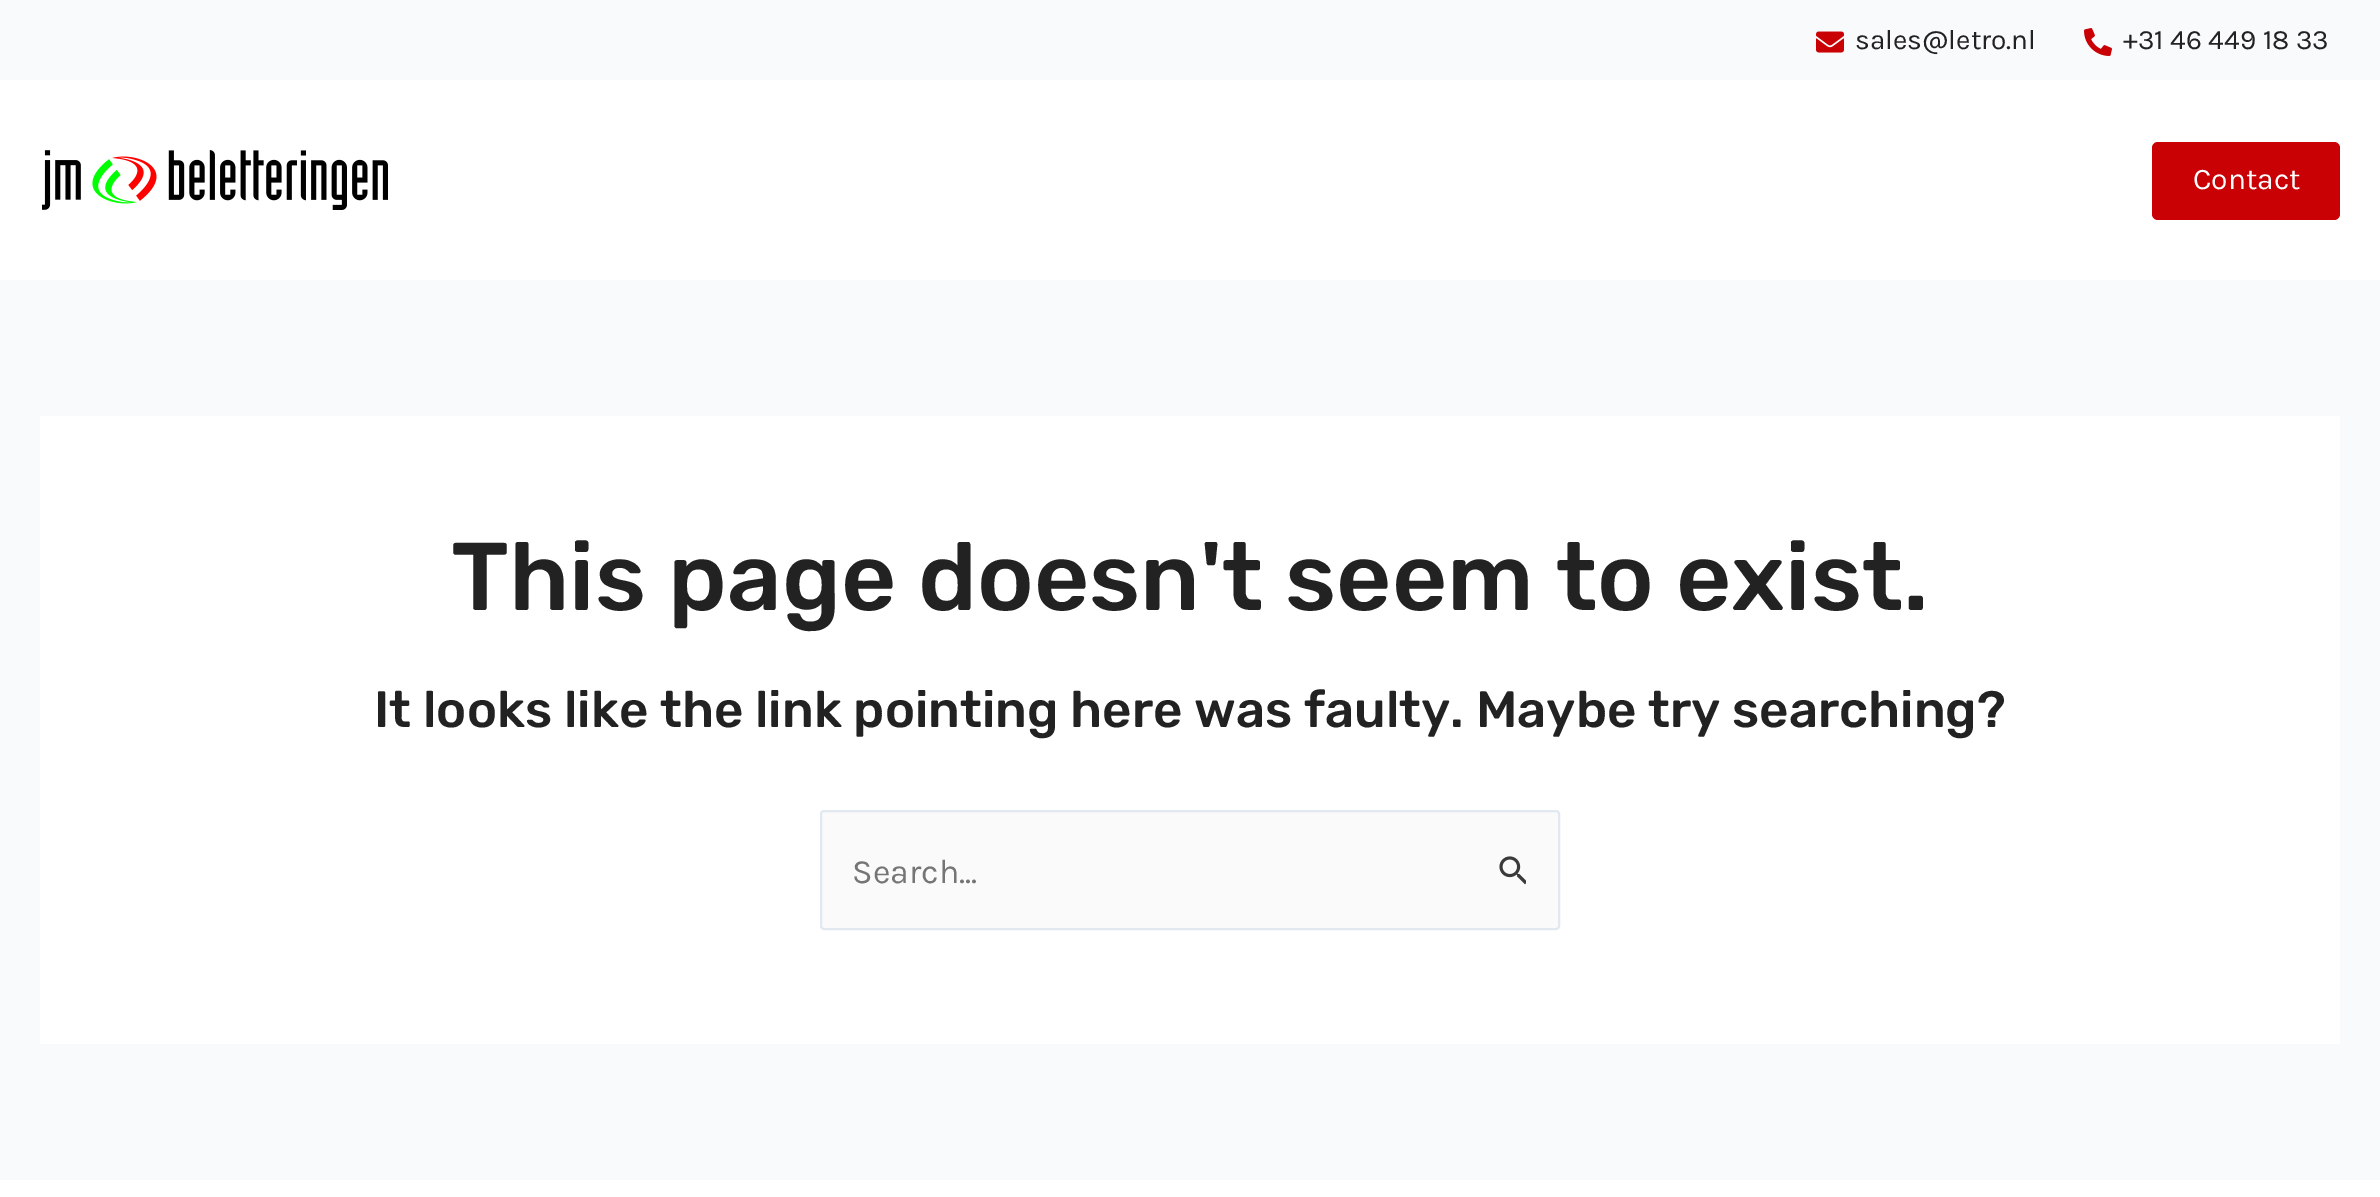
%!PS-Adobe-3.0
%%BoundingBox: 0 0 2380 1197
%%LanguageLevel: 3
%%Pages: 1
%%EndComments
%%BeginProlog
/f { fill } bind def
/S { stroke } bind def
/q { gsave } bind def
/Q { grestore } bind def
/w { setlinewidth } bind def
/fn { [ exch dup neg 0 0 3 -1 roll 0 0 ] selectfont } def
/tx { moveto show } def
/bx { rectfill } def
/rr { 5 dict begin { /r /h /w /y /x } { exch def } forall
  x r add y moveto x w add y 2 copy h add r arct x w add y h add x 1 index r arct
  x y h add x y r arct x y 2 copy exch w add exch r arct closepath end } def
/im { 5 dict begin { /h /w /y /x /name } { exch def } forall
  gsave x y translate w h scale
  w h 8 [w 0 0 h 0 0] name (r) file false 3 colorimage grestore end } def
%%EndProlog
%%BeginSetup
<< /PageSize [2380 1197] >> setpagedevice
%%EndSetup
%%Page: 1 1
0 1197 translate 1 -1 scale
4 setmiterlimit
0.976 0.98 0.984 setrgbcolor
0 0 2380 1197 bx
(image0.raw) 1816 31 28 22 im
/Karla-Regular 28 fn
0.133 setgray
(sales@letro.nl) 1855 49 tx
(image1.raw) 2084 28 28 28 im
(+31 46 449 18 33) 2123 49 tx
1 setgray
0 80 2380 200 bx
(image2.raw) 42 150 346 60 im
0.788 0.004 0.016 setrgbcolor
2152 142 188 78 6 rr f
/Karla-Regular 30 fn
1 setgray
(Contact) 2193 189 tx
40 416 2300 628 bx
/Rubik-Light 96 fn
0.133 setgray
(This page doesn't seem to exist.) 451 610 tx
/Rubik-Light 51 fn
(It looks like the link pointing here was faulty. Maybe try searching?) 374 727 tx
0.98 setgray
821 811 738 118 3 rr q f Q
0.886 0.91 0.941 setrgbcolor
2 w
S
/Karla-Regular 34 fn
0.459 setgray
(Search...) 852 883 tx
(image3.raw) 1499 856 27 29 im
1 setgray
0 1180 2380 17 bx
showpage
%%EOF
